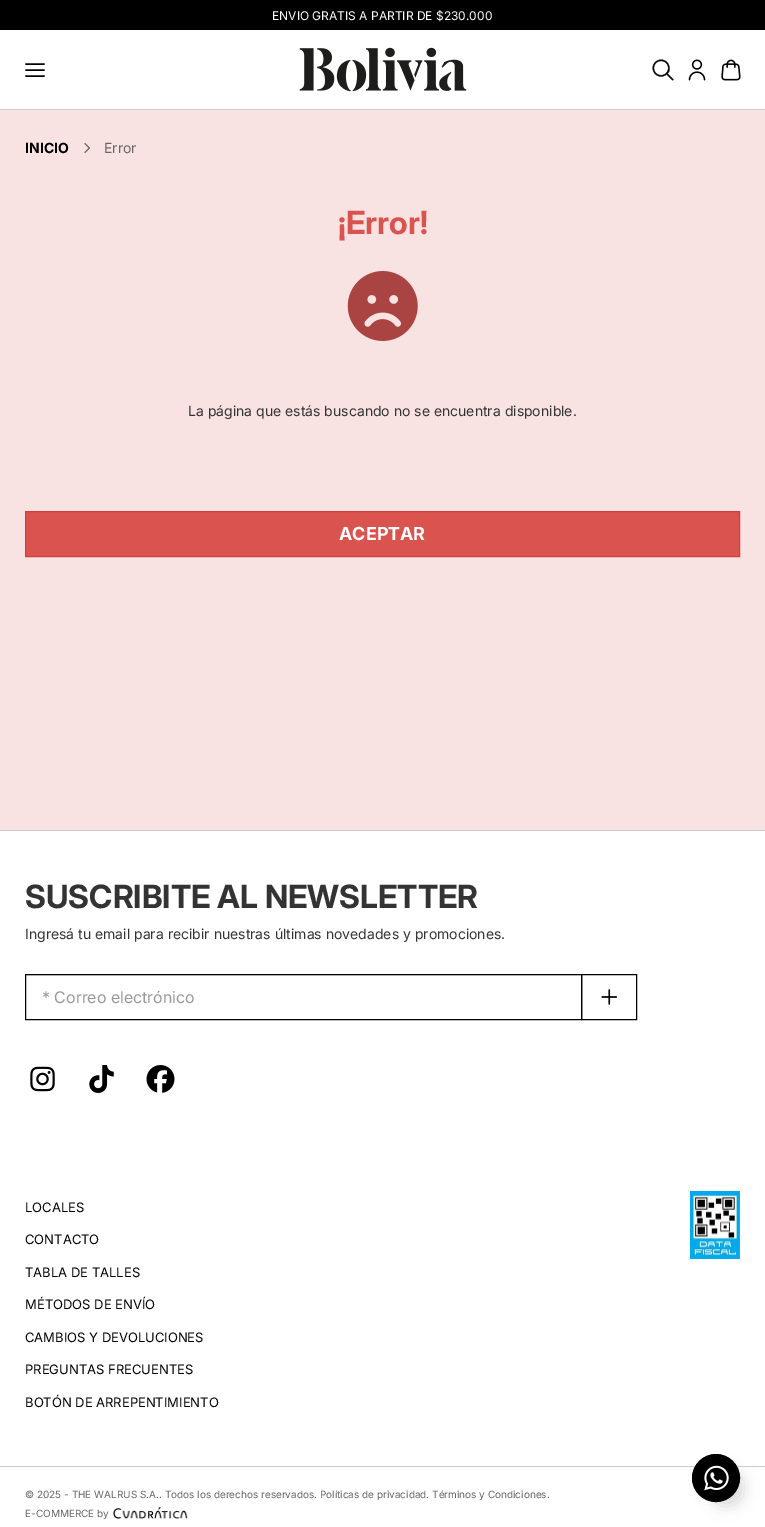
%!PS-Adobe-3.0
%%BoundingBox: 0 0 765 1527
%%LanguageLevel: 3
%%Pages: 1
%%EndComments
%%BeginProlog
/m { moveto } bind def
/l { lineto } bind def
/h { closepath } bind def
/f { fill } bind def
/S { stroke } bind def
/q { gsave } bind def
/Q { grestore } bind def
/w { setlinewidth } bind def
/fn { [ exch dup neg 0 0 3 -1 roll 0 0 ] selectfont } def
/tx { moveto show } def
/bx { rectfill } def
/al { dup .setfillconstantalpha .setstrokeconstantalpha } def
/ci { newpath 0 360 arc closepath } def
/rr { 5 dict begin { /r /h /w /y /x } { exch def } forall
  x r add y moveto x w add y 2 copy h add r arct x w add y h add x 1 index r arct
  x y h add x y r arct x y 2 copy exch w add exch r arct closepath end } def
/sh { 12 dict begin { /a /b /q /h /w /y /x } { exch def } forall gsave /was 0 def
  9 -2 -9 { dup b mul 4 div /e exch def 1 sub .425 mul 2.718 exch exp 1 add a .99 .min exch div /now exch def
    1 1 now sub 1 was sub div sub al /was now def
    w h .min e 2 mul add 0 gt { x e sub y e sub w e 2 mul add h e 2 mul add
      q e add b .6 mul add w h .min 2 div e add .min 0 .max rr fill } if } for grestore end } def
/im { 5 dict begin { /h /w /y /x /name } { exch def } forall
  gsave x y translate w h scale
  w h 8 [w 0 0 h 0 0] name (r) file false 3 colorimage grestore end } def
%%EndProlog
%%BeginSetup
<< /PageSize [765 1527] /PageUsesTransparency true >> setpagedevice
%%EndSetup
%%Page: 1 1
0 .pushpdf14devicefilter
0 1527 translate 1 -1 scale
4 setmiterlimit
0.976 0.886 0.886 setrgbcolor
0 0 765 1527 bx
0 setgray
0 0 765 30 bx
/Inter-Regular 12 fn
1 setgray
(ENVIO GRATIS A PARTIR DE $230.000) 272 20 tx
0 30 765 79 bx
0.8 setgray
0 109 765 1 bx
0 setgray
1.5 w
1 setlinecap
26 64 m 44 64 l 26 70 m 44 70 l 26 76 m 44 76 l S
(image0.raw) 299 47 168 45 im
(image1.raw) 652 59 22 22 im
(image2.raw) 688 59 18 22 im
(image3.raw) 721 59 20 22 im
/Inter-Bold 14 fn
(INICIO) 25 153 tx
(image4.raw) 84 143 6 10 im
/Inter-Regular 14 fn
0.4 setgray
(Error) 104 153 tx
/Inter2-Bold 32 fn
0.851 0.325 0.31 setrgbcolor
(¡Error!) 338 234 tx
(image5.raw) 347 271 71 70 im
/Inter-Regular 14 fn
0.2 setgray
(La página que estás buscando no se encuentra disponible.) 188 416 tx
0.851 0.325 0.31 setrgbcolor
25.5 511.5 m 739.5 511.5 l 739.5 556.5 l 25.5 556.5 l h q f Q
0.831 0.247 0.227 setrgbcolor
1 w
0 setlinecap
S
/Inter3-Bold 18 fn
1 setgray
(ACEPTAR) 339 540 tx
0 831 765 696 bx
0.8 setgray
0 830 765 1 bx
/Inter2-Bold 32 fn
0.2 setgray
(SUSCRIBITE AL NEWSLETTER) 25 908 tx
/Inter-Regular 14 fn
(Ingresá tu email para recibir nuestras últimas novedades y promociones.) 25 939 tx
0.925 setgray
26 975 555 1 bx
0 setgray
581.5 974.5 55 45 rectstroke
25.5 974.5 556 45 rectstroke
/Inter2-Regular 16 fn
0.6 setgray
(* Correo electrónico) 42 1003 tx
(image6.raw) 601 989 16 16 im
(image7.raw) 30 1066 25 26 im
(image8.raw) 89 1065 25 28 im
(image9.raw) 146 1065 29 28 im
/Inter-Regular 13 fn
0 setgray
(LOCALES) 25 1212 tx
(CONTACTO) 25 1244 tx
(TABLA DE TALLES) 25 1277 tx
(MÉTODOS DE ENVÍO) 25 1309 tx
(CAMBIOS Y DEVOLUCIONES) 25 1342 tx
(PREGUNTAS FRECUENTES) 25 1374 tx
(BOTÓN DE ARREPENTIMIENTO) 25 1407 tx
(image10.raw) 690 1191 50 68 im
0.8 setgray
0 1466 765 1 bx
/Inter-Regular 10 fn
0.4 setgray
(© 2025 - THE WALRUS S.A.. Todos los derechos reservados. Políticas de privacidad. Términos y Condiciones.) 25 1498 tx
(E-COMMERCE by) 25 1517 tx
(image11.raw) 112 1507 76 12 im
0.851 setgray
708 1470 36 36 18 7.5 1 sh
0 setgray
716 1478 23.5 ci q f Q
S
(image12.raw) 704 1465 25 26 im
.poppdf14devicefilter showpage
%%EOF
